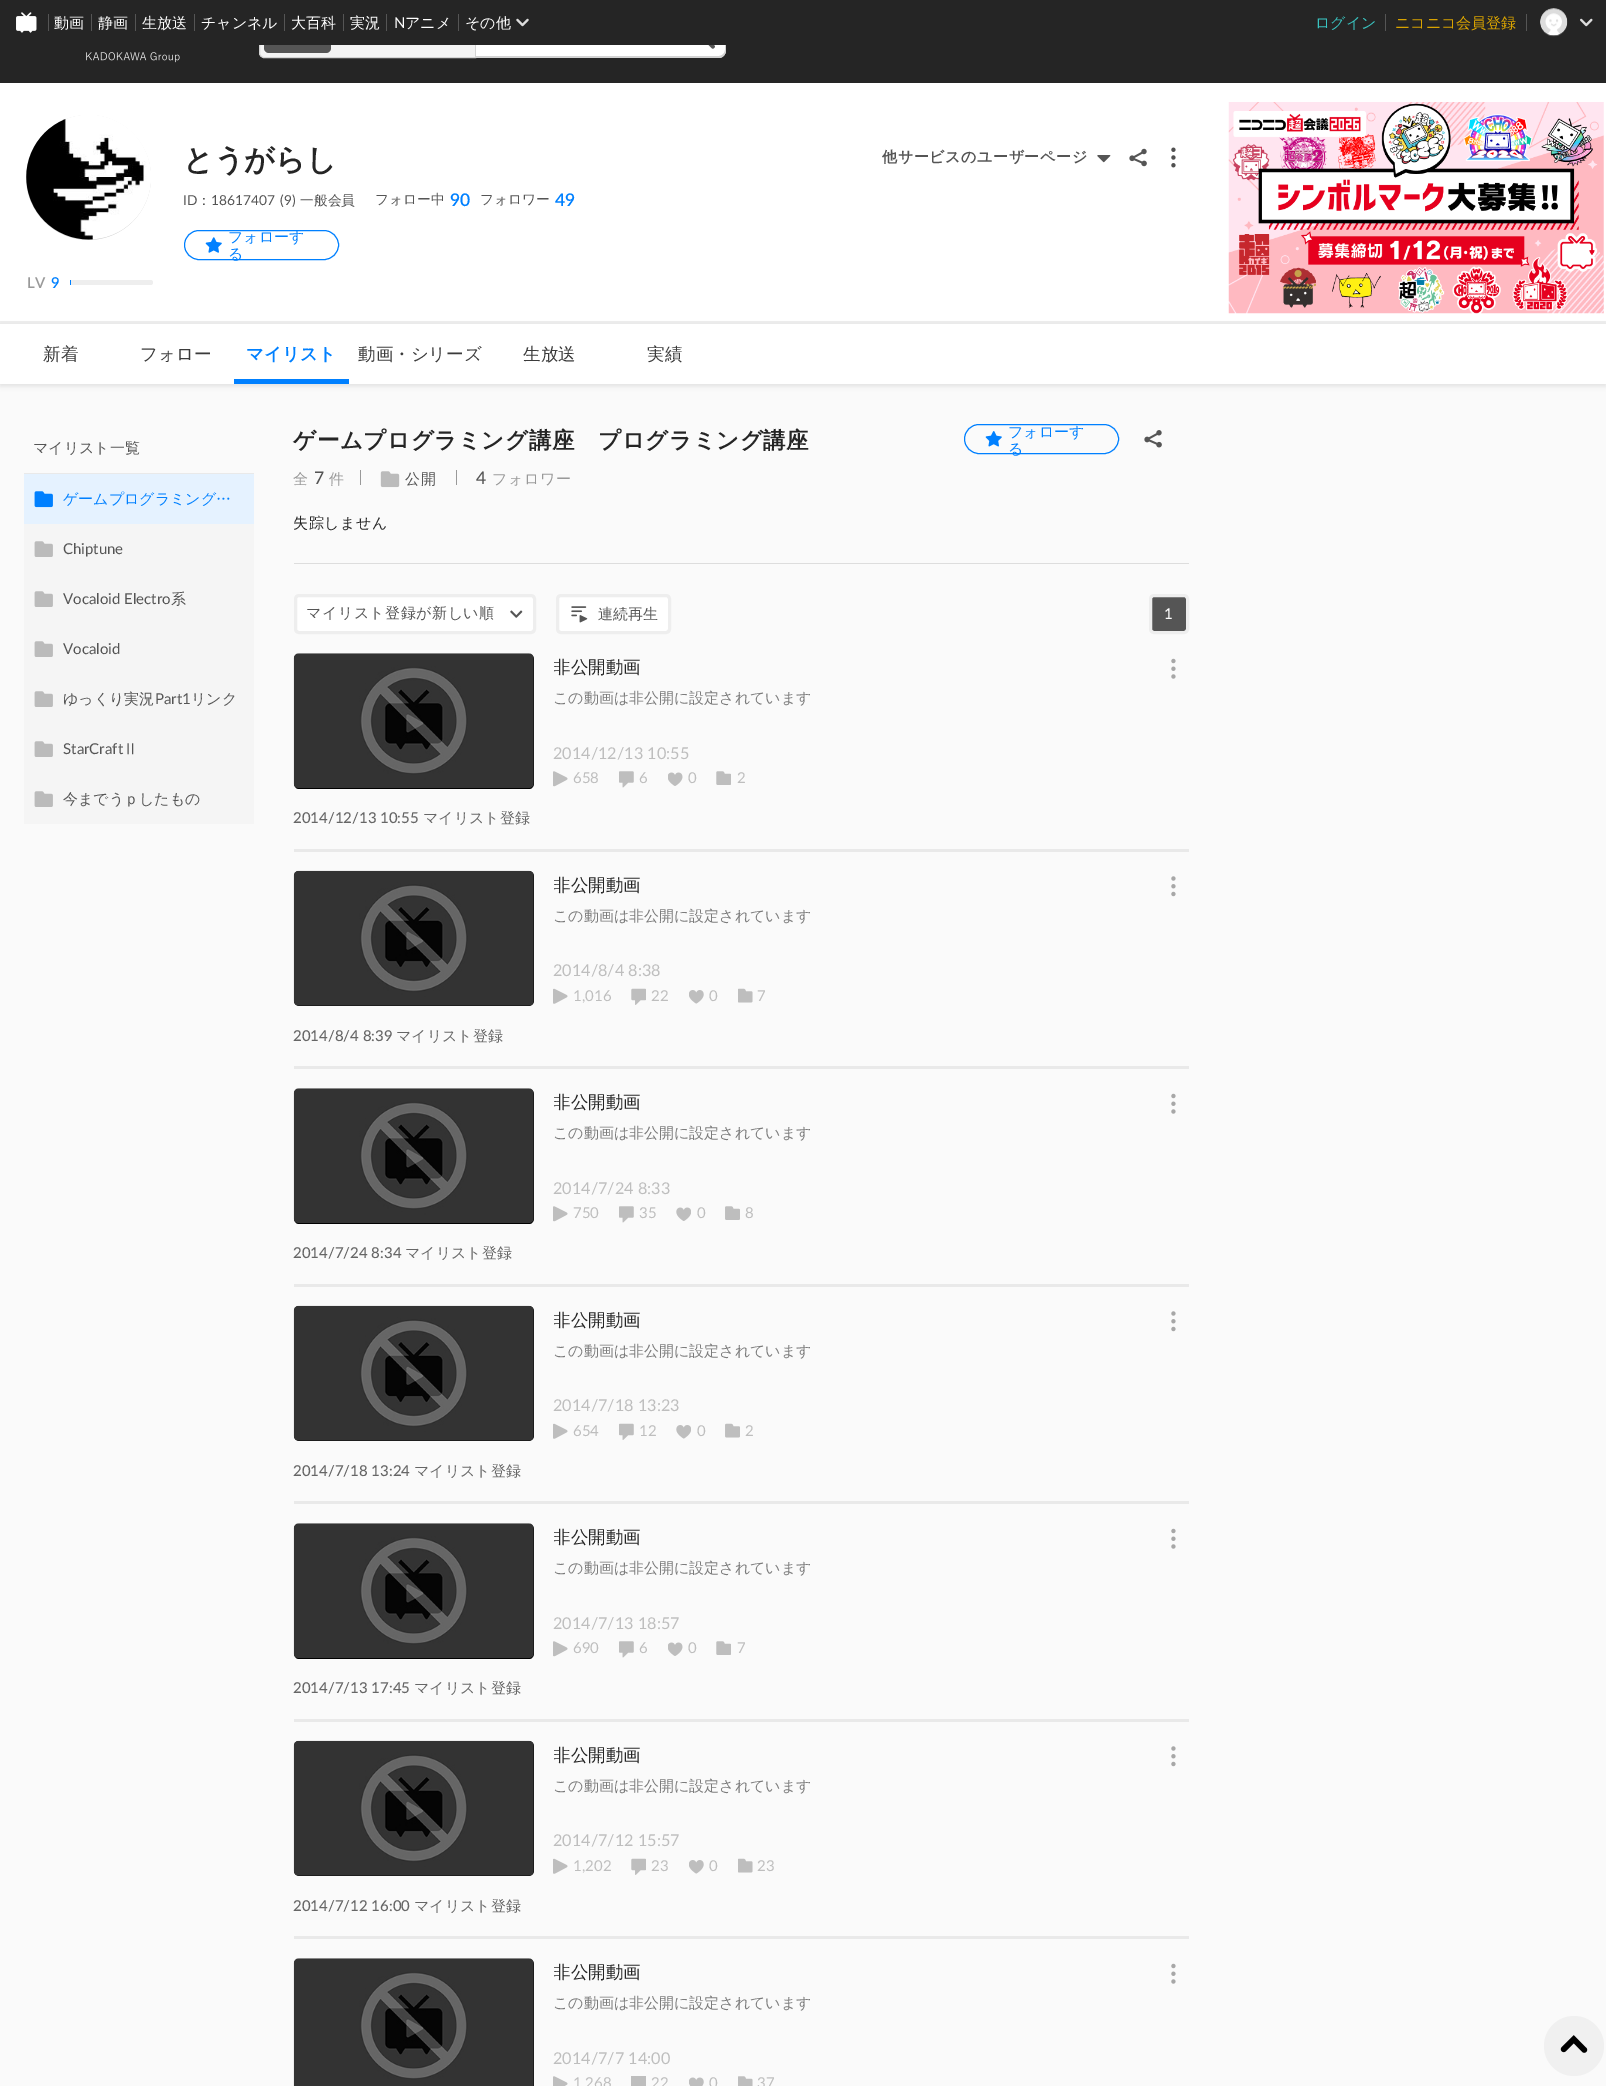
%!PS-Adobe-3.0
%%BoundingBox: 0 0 1606 2086
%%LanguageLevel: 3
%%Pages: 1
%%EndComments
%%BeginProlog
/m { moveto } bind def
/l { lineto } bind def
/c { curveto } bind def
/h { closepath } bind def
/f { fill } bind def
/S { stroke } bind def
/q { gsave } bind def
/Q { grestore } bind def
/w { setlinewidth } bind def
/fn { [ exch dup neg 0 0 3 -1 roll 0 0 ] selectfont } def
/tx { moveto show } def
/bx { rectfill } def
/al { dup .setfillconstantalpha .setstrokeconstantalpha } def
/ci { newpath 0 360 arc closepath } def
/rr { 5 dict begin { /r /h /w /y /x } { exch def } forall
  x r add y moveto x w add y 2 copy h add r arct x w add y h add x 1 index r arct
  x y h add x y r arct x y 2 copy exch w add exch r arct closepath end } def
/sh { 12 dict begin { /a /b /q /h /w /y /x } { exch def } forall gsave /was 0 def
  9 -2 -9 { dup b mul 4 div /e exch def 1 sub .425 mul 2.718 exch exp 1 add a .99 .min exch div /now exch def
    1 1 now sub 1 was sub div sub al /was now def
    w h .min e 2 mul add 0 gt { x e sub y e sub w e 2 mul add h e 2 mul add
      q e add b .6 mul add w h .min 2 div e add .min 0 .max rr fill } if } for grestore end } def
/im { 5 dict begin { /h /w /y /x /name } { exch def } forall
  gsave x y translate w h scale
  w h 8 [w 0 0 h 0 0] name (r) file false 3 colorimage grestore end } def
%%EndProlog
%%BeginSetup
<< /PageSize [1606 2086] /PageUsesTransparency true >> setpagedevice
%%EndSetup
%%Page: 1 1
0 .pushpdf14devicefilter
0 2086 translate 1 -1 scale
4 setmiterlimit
0.98 setgray
0 0 1606 2086 bx
0.145 setgray
0 45 1606 38 bx
0.953 setgray
264 18.5 m 475.5 18.5 l 475.5 57.5 l 264 57.5 l 261.5 57.5 259.5 55.5 259.5 53 c 259.5 23 l 259.5 20.5 261.5 18.5 264 18.5 c h q f Q
0.827 setgray
S
0.333 setgray
264 23 67 30 5 rr f
1 setgray
476 18 m 718 18 l 722.5 18 726 21.5 726 26 c 726 50 l 726 54.5 722.5 58 718 58 c 476 58 l h f
0.827 setgray
476 18 m 719 18 l 723 18 726 21 726 25 c 726 50 l 726 54 723 58 719 58 c 476 58 l h 476 19 m 719 19 l 722 19 725 22 725 25 c 725 50 l 725 53 722 56 719 56 c 476 56 l h eofill
0.145 setgray
0 0 1606 45 bx
(image0.raw) 16 12 21 21 im
0.333 setgray
48 14 1 17 bx
/WenQuanYiZenHei-Medium 15 fn
1 setgray
(動画) 54 28 tx
0.333 setgray
91 14 1 17 bx
1 setgray
(静画) 98 28 tx
0.333 setgray
135 14 1 17 bx
1 setgray
(生放送) 142 28 tx
0.333 setgray
194 14 1 17 bx
1 setgray
(チャンネル) 201 28 tx
0.333 setgray
284 14 1 17 bx
1 setgray
(大百科) 291 28 tx
0.333 setgray
343 14 1 17 bx
1 setgray
(実況) 350 28 tx
0.333 setgray
386 14 1 17 bx
/Lato-Regular 15 fn
1 setgray
(N) 394 28 tx
/WenQuanYiZenHei-Medium 15 fn
(アニメ) 405 28 tx
0.333 setgray
458 14 1 17 bx
1 setgray
(その他) 465 28 tx
(image1.raw) 516 18 13 9 im
0.224 0.769 0.757 setrgbcolor
(ログイン) 1315 28 tx
0.333 setgray
1385 14 1 17 bx
0.851 0.639 0 setrgbcolor
(ニコニコ会員登録) 1395 28 tx
0.333 setgray
1526 14 1 17 bx
(image2.raw) 1540 8 28 29 im
(image3.raw) 1580 18 13 9 im
(image4.raw) 86 52 94 11 im
(image5.raw) 708 45 7 4 im
1 setgray
0 83 1606 238 bx
/WenQuanYiZenHei-Bold 30 fn
0.145 setgray
(とうがらし) 183 170 tx
/WenQuanYiZenHei-Bold 15 fn
0.333 setgray
882 162 m 0.6 0 (他サービスのユーザーページ) ashow
(image6.raw) 1097 155 14 8 im
(image7.raw) 1129 148 18 19 im
(image8.raw) 1171 147 5 21 im
/Lato-Regular 13.75 fn
(ID) 183 205 tx
/WenQuanYiZenHei-Medium 13.75 fn
(：) 197 205 tx
/Lato-Regular 13.75 fn
(18617407) 211 205 tx
(\(9\)) 280 205 tx
/WenQuanYiZenHei-Medium 13.75 fn
(一般会員) 300 205 tx
(フォロー中) 375 204 tx
/Lato-SemiBold 17.5 fn
0 0.502 1 setrgbcolor
(90) 450 206 tx
/WenQuanYiZenHei-Medium 13.75 fn
0.333 setgray
(フォロワー) 480 204 tx
/Lato-SemiBold 17.5 fn
0 0.502 1 setrgbcolor
(49) 555 206 tx
184.5 230.5 154 29 14.5 rr S
(image9.raw) 205 237 17 16 im
/WenQuanYiZenHei-Medium 15 fn
(フォローす) 228 242 tx
(る) 228 259 tx
0.8 setgray
88.5 177.5 62.5 ci f
(image10.raw) 26 115 125 125 im
/Lato-SemiBold 15 fn
0.6 setgray
27 288 m 0.6 0 (LV) ashow
0 0.502 1 setrgbcolor
51 288 m 0.6 0 (9) ashow
0.933 setgray
70 280 83 5 2.5 rr f
q
70 280 83 5 2.5 rr clip newpath
0 0.502 1 setrgbcolor
70 280 1 5 bx
Q
0 321 1606 3 bx
(image11.raw) 1228 102 376 212 im
0 setgray
0 326 1606 60 0 2.5 0.1 sh
1 setgray
0 324 1606 60 bx
/WenQuanYiZenHei-Medium 17.5 fn
0.231 setgray
(新着) 43 360 tx
(フォロー) 140 360 tx
/WenQuanYiZenHei-Bold 17.5 fn
0 0.502 1 setrgbcolor
(マイリスト) 246 360 tx
/WenQuanYiZenHei-Medium 17.5 fn
0.231 setgray
(動画・シリーズ) 358 360 tx
(生放送) 523 360 tx
(実績) 647 360 tx
0 0.502 1 setrgbcolor
234 379 115 5 bx
0.914 setgray
24 473 230 1 bx
/WenQuanYiZenHei-Medium 15 fn
0.333 setgray
(マイリスト一覧) 33 453 tx
0.898 0.949 1 setrgbcolor
24 474 230 50 bx
(image12.raw) 34 491 19 17 im
0 0.502 1 setrgbcolor
(ゲームプログラミング…) 63 504 tx
0.961 setgray
24 524 230 300 bx
(image13.raw) 34 541 19 16 im
/Lato-Regular 15 fn
0.333 setgray
(Chiptune) 63 554 tx
(image13.raw) 34 591 19 16 im
(Vocaloid Electro) 63 604 tx
/WenQuanYiZenHei-Medium 15 fn
(系) 171 604 tx
(image13.raw) 34 641 19 16 im
/Lato-Regular 15 fn
(Vocaloid) 63 654 tx
(image13.raw) 34 691 19 16 im
/WenQuanYiZenHei-Medium 15 fn
(ゆっくり実況) 63 704 tx
/Lato-Regular 15 fn
(Part1) 155 704 tx
/WenQuanYiZenHei-Medium 15 fn
(リンク) 191 704 tx
(image13.raw) 34 741 19 16 im
/Lato-Regular 15 fn
(StarCraft) 63 754 tx
/WenQuanYiZenHei-Medium 15 fn
(Ⅱ) 123 754 tx
(image13.raw) 34 791 19 16 im
(今までうｐしたもの) 63 804 tx
/WenQuanYiZenHei-Bold 22.5 fn
0.145 setgray
293 448 m 0.6 0 (ゲームプログラミング講座　プログラミング講座) ashow
/WenQuanYiZenHei-Medium 15 fn
0.6 setgray
293 484 m 0.6 0 (全) ashow
/Lato-Medium 17.5 fn
0.333 setgray
314 484 m 1 0 (7) ashow
/WenQuanYiZenHei-Medium 15 fn
0.6 setgray
329 484 m 0.6 0 (件) ashow
360 470 1 15 bx
(image14.raw) 380 471 20 17 im
0.333 setgray
405 484 m 1 0 (公開) ashow
0.6 setgray
456 470 1 15 bx
/Lato-Medium 17.5 fn
0.333 setgray
476 484 m 1 0 (4) ashow
/WenQuanYiZenHei-Medium 15 fn
0.6 setgray
492 484 m 0.6 0 (フォロワー) ashow
0.145 setgray
293 528 m 0.6 0 (失踪しません) ashow
0 0.502 1 setrgbcolor
964.5 424.5 154 29 14.5 rr S
(image15.raw) 985 431 17 16 im
(フォローす) 1008 437 tx
(る) 1008 454 tx
(image16.raw) 1144 430 18 18 im
0.867 setgray
294 563 895 1 bx
1 setgray
295.5 595.5 239 37 3.5 rr q f Q
0.933 setgray
3 w
S
0.333 setgray
306 618 m 0.5 0 (マイリスト登録が新しい順) ashow
(image17.raw) 510 610 13 8 im
1 setgray
557.5 595.5 112 37 3.5 rr q f Q
0.933 setgray
S
(image18.raw) 571 606 17 17 im
0.333 setgray
(連続再生) 598 619 tx
1150.5 595.5 37 37 3.5 rr q f Q
0.933 setgray
S
/Lato-Medium 15 fn
1 setgray
(1) 1164 619 tx
0 setgray
294 654 240 135 5 rr f
(image19.raw) 293 653 241 135 im
q
554 654 605 27 rectclip
/WenQuanYiZenHei-Medium 17.5 fn
0.145 setgray
(非公開動画) 553 673 tx
Q
/WenQuanYiZenHei-Medium 15 fn
0.486 setgray
(この動画は非公開に設定されています) 553 703 tx
/Lato-Regular 16.25 fn
0.745 setgray
(2014/12/13 10:55) 553 759 tx
(image20.raw) 553 771 15 16 im
/Lato-Regular 15 fn
(658) 573 783 tx
(image21.raw) 619 771 15 17 im
(6) 639 783 tx
(image22.raw) 668 772 15 14 im
(0) 688 783 tx
(image23.raw) 716 771 15 14 im
(2) 737 783 tx
(image24.raw) 1171 658 5 21 im
/Lato-Medium 15 fn
0.4 setgray
(2014/12/13 10:55) 293 823 tx
/WenQuanYiZenHei-Medium 15 fn
(マイリスト登録) 423 823 tx
0.914 setgray
294 849 895 3 bx
0 setgray
294 871 240 135 5 rr f
(image25.raw) 293 870 241 136 im
q
554 871 605 28 rectclip
/WenQuanYiZenHei-Medium 17.5 fn
0.145 setgray
(非公開動画) 553 891 tx
Q
0.486 setgray
(この動画は非公開に設定されています) 553 921 tx
/Lato-Regular 16.25 fn
0.745 setgray
(2014/8/4 8:38) 553 976 tx
(image26.raw) 553 988 15 16 im
/Lato-Regular 15 fn
(1,016) 573 1001 tx
(image27.raw) 631 988 15 17 im
(22) 651 1001 tx
(image28.raw) 689 990 15 14 im
(0) 709 1001 tx
(image29.raw) 738 988 15 15 im
(7) 757 1001 tx
(image30.raw) 1171 876 5 21 im
/Lato-Medium 15 fn
0.4 setgray
(2014/8/4 8:39) 293 1041 tx
/WenQuanYiZenHei-Medium 15 fn
(マイリスト登録) 396 1041 tx
0.914 setgray
294 1066 895 3 bx
0 setgray
294 1089 240 135 5 rr f
(image19.raw) 293 1088 241 135 im
q
554 1089 605 27 rectclip
/WenQuanYiZenHei-Medium 17.5 fn
0.145 setgray
(非公開動画) 553 1108 tx
Q
0.486 setgray
(この動画は非公開に設定されています) 553 1138 tx
/Lato-Regular 16.25 fn
0.745 setgray
(2014/7/24 8:33) 553 1194 tx
(image20.raw) 553 1206 15 16 im
/Lato-Regular 15 fn
(750) 573 1218 tx
(image21.raw) 619 1206 15 17 im
(35) 639 1218 tx
(image31.raw) 676 1207 15 14 im
(0) 697 1218 tx
(image32.raw) 725 1206 15 14 im
(8) 745 1218 tx
(image24.raw) 1171 1093 5 21 im
/Lato-Medium 15 fn
0.4 setgray
(2014/7/24 8:34) 293 1258 tx
/WenQuanYiZenHei-Medium 15 fn
(マイリスト登録) 405 1258 tx
0.914 setgray
294 1284 895 3 bx
0 setgray
294 1306 240 135 5 rr f
(image25.raw) 293 1305 241 136 im
q
554 1306 605 28 rectclip
/WenQuanYiZenHei-Medium 17.5 fn
0.145 setgray
(非公開動画) 553 1326 tx
Q
0.486 setgray
(この動画は非公開に設定されています) 553 1356 tx
/Lato-Regular 16.25 fn
0.745 setgray
(2014/7/18 13:23) 553 1411 tx
(image26.raw) 553 1423 15 16 im
/Lato-Regular 15 fn
(654) 573 1436 tx
(image33.raw) 619 1423 15 17 im
(12) 639 1436 tx
(image34.raw) 676 1425 15 14 im
(0) 697 1436 tx
(image35.raw) 725 1423 15 15 im
(2) 745 1436 tx
(image30.raw) 1171 1311 5 21 im
/Lato-Medium 15 fn
0.4 setgray
(2014/7/18 13:24) 293 1476 tx
/WenQuanYiZenHei-Medium 15 fn
(マイリスト登録) 414 1476 tx
0.914 setgray
294 1501 895 3 bx
0 setgray
294 1524 240 135 5 rr f
(image19.raw) 293 1523 241 135 im
q
554 1524 605 27 rectclip
/WenQuanYiZenHei-Medium 17.5 fn
0.145 setgray
(非公開動画) 553 1543 tx
Q
0.486 setgray
(この動画は非公開に設定されています) 553 1573 tx
/Lato-Regular 16.25 fn
0.745 setgray
(2014/7/13 18:57) 553 1629 tx
(image20.raw) 553 1641 15 16 im
/Lato-Regular 15 fn
(690) 573 1653 tx
(image21.raw) 619 1641 15 17 im
(6) 639 1653 tx
(image22.raw) 668 1642 15 14 im
(0) 688 1653 tx
(image23.raw) 716 1641 15 14 im
(7) 737 1653 tx
(image24.raw) 1171 1528 5 21 im
/Lato-Medium 15 fn
0.4 setgray
(2014/7/13 17:45) 293 1693 tx
/WenQuanYiZenHei-Medium 15 fn
(マイリスト登録) 414 1693 tx
0.914 setgray
294 1719 895 3 bx
0 setgray
294 1741 240 135 5 rr f
(image25.raw) 293 1740 241 136 im
q
554 1741 605 28 rectclip
/WenQuanYiZenHei-Medium 17.5 fn
0.145 setgray
(非公開動画) 553 1761 tx
Q
0.486 setgray
(この動画は非公開に設定されています) 553 1791 tx
/Lato-Regular 16.25 fn
0.745 setgray
(2014/7/12 15:57) 553 1846 tx
(image26.raw) 553 1858 15 16 im
/Lato-Regular 15 fn
(1,202) 573 1871 tx
(image27.raw) 631 1858 15 17 im
(23) 651 1871 tx
(image28.raw) 689 1860 15 14 im
(0) 709 1871 tx
(image29.raw) 738 1858 15 15 im
(23) 757 1871 tx
(image30.raw) 1171 1746 5 21 im
/Lato-Medium 15 fn
0.4 setgray
(2014/7/12 16:00) 293 1911 tx
/WenQuanYiZenHei-Medium 15 fn
(マイリスト登録) 414 1911 tx
0.914 setgray
294 1936 895 3 bx
0 setgray
294 1959 240 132 5 rr f
(image36.raw) 293 1958 241 128 im
q
554 1959 605 27 rectclip
/WenQuanYiZenHei-Medium 17.5 fn
0.145 setgray
(非公開動画) 553 1978 tx
Q
0.486 setgray
(この動画は非公開に設定されています) 553 2008 tx
/Lato-Regular 16.25 fn
0.745 setgray
(2014/7/7 14:00) 553 2064 tx
(image37.raw) 553 2076 15 10 im
/Lato-Regular 15 fn
(1,268) 573 2088 tx
631 2076 15 10 bx
(22) 651 2088 tx
(image38.raw) 689 2077 15 9 im
(0) 709 2088 tx
(image39.raw) 738 2076 15 10 im
(37) 757 2088 tx
(image24.raw) 1171 1963 5 21 im
0.941 setgray
1574 2046 30 ci f
(image40.raw) 1560 2035 28 18 im
.poppdf14devicefilter showpage
%%EOF
